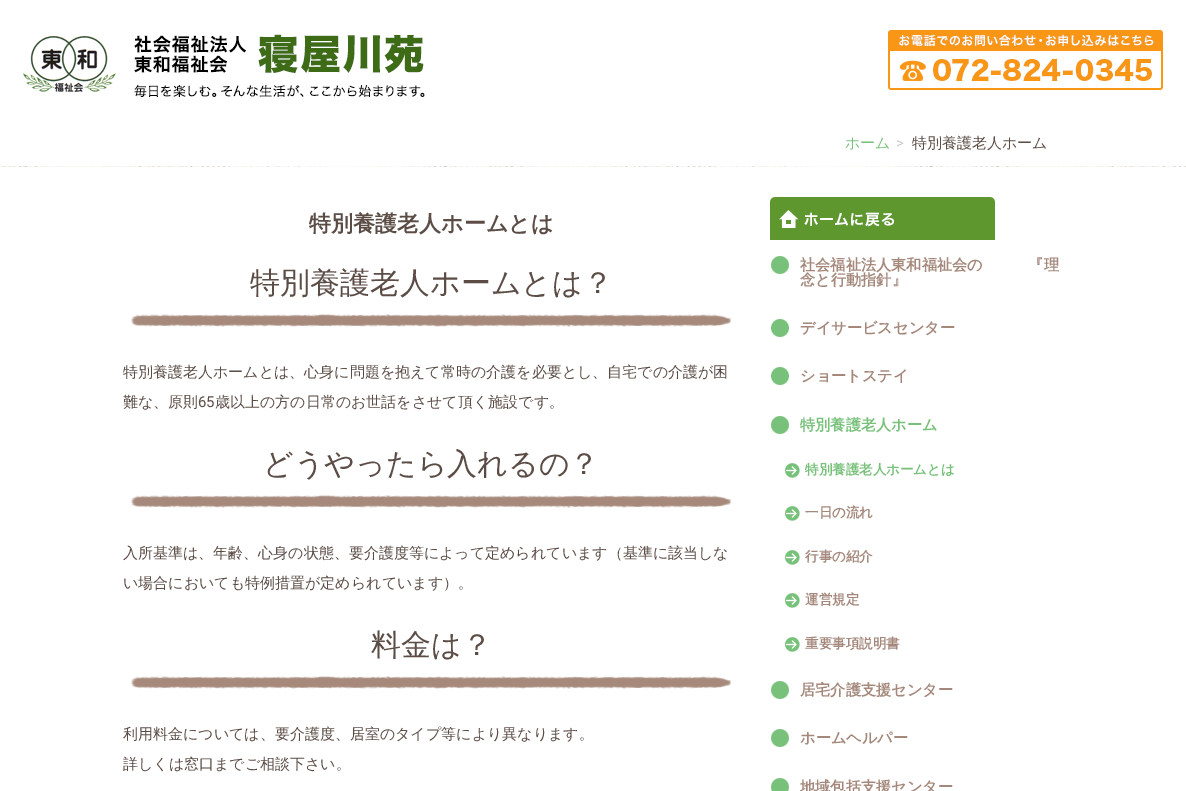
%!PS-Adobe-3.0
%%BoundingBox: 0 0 1186 791
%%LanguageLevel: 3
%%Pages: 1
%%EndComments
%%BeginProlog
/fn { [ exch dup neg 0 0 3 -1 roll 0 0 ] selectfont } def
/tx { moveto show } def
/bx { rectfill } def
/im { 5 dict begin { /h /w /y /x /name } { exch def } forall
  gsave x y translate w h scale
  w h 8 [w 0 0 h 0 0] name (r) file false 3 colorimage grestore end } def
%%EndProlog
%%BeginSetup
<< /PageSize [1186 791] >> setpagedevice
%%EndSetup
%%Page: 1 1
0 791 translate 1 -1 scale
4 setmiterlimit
1 setgray
0 0 1186 791 bx
(image0.raw) 23 34 402 63 im
(image1.raw) 888 30 275 60 im
/WenQuanYiZenHei-Medium 15 fn
0.471 0.757 0.478 setrgbcolor
(ホーム) 845 148 tx
/Roboto-Regular 15 fn
0.8 setgray
(>) 896 148 tx
/WenQuanYiZenHei-Medium 15 fn
0.357 0.298 0.275 setrgbcolor
(特別養護老人ホーム) 912 148 tx
(image2.raw) 0 166 1186 1 im
/WenQuanYiZenHei-Bold 22 fn
(特別養護老人ホームとは) 309 231 tx
/WenQuanYiZenHei-Medium 30 fn
(特別養護老人ホームとは？) 250 293 tx
(image3.raw) 131 314 600 13 im
/WenQuanYiZenHei-Medium 15 fn
(特別養護老人ホームとは、心身に問題を抱えて常時の介護を必要とし、自宅での介護が困) 123 377 tx
(難な、原則) 123 407 tx
/Roboto-Regular 15 fn
(65) 198 407 tx
/WenQuanYiZenHei-Medium 15 fn
(歳以上の方の日常のお世話をさせて頂く施設です。) 215 407 tx
/WenQuanYiZenHei-Medium 30 fn
(どうやったら入れるの？) 263 474 tx
(image3.raw) 131 495 600 13 im
/WenQuanYiZenHei-Medium 15 fn
(入所基準は、年齢、心身の状態、要介護度等によって定められています（基準に該当しな) 123 558 tx
(い場合においても特例措置が定められています）。) 123 588 tx
/WenQuanYiZenHei-Medium 30 fn
(料金は？) 371 655 tx
(image3.raw) 131 676 600 13 im
/WenQuanYiZenHei-Medium 15 fn
(利用料金については、要介護度、居室のタイプ等により異なります。) 123 739 tx
(詳しくは窓口までご相談下さい。) 123 769 tx
(image4.raw) 770 197 225 43 im
(image5.raw) 771 256 18 18 im
/WenQuanYiZenHei-Bold 15.2 fn
0.647 0.533 0.482 setrgbcolor
(社会福祉法人東和福祉会の　　　『理) 800 270 tx
(念と行動指針』) 800 285 tx
(image5.raw) 771 319 18 18 im
(デイサービスセンター) 800 333 tx
(image5.raw) 771 367 18 18 im
(ショートステイ) 800 381 tx
(image5.raw) 771 416 18 18 im
0.471 0.757 0.478 setrgbcolor
(特別養護老人ホーム) 800 430 tx
(image6.raw) 785 463 15 15 im
/WenQuanYiZenHei-Bold 13.5 fn
(特別養護老人ホームとは) 805 474 tx
(image6.raw) 785 506 15 15 im
0.647 0.533 0.482 setrgbcolor
(一日の流れ) 805 517 tx
(image6.raw) 785 550 15 15 im
(行事の紹介) 805 561 tx
(image6.raw) 785 593 15 15 im
(運営規定) 805 604 tx
(image6.raw) 785 637 15 15 im
(重要事項説明書) 805 648 tx
(image5.raw) 771 681 18 18 im
/WenQuanYiZenHei-Bold 15.2 fn
(居宅介護支援センター) 800 695 tx
(image5.raw) 771 729 18 18 im
(ホームヘルパー) 800 743 tx
(image7.raw) 771 778 18 13 im
(地域包括支援センター) 800 792 tx
showpage
%%EOF
